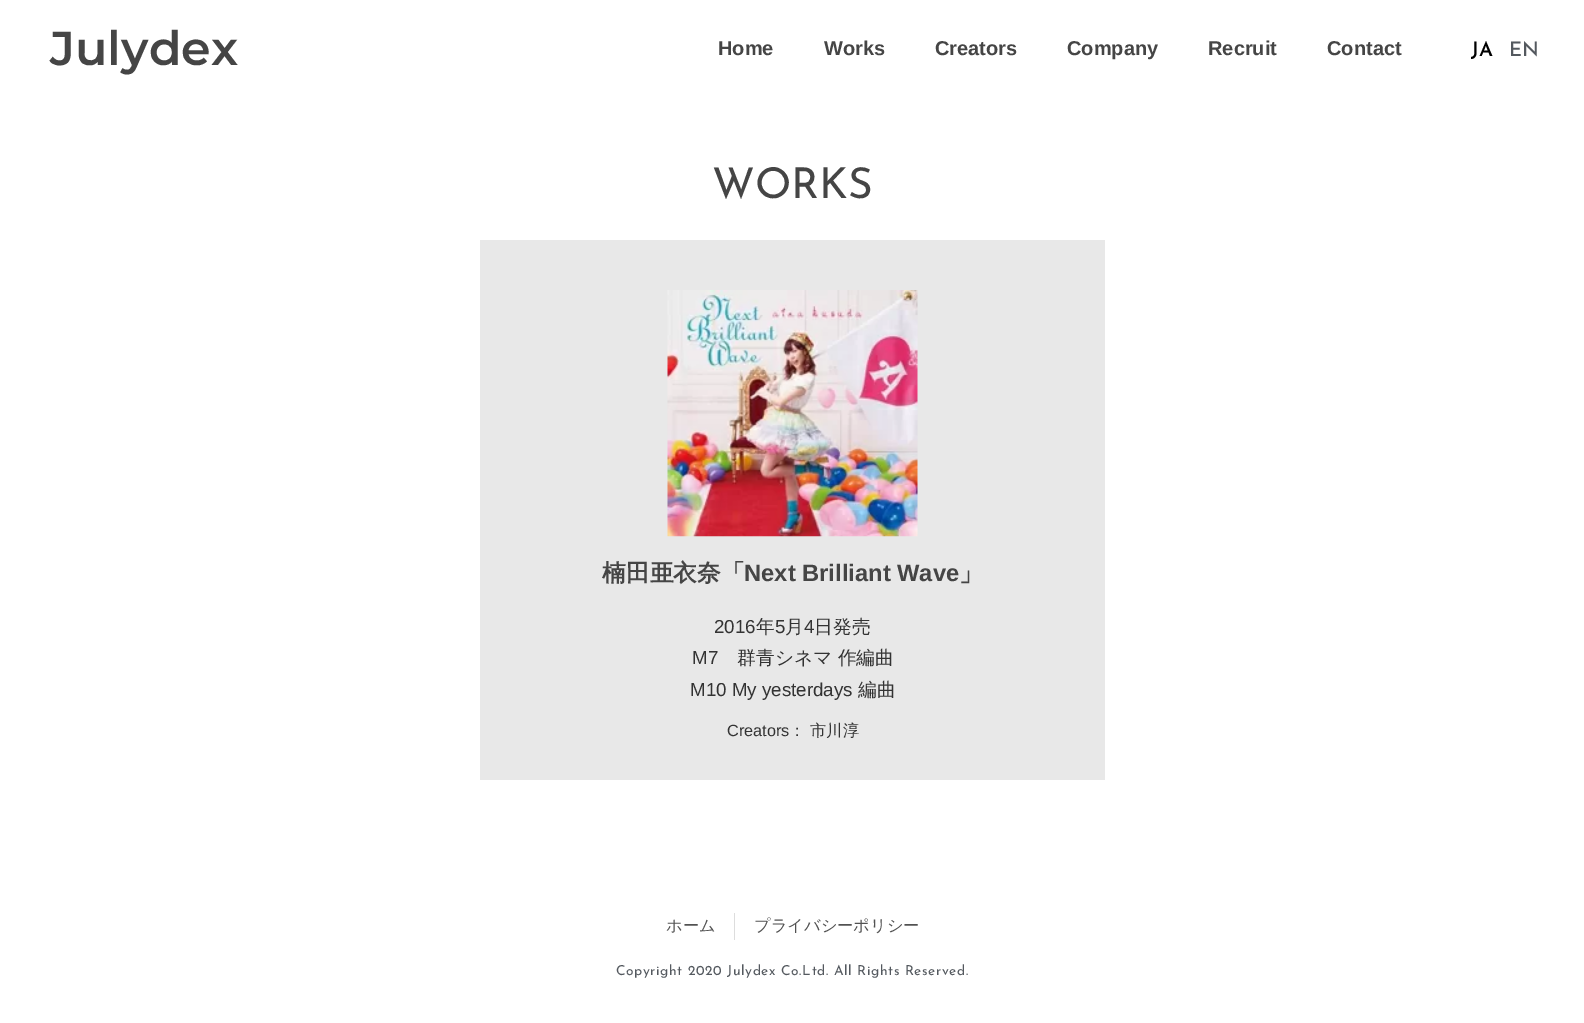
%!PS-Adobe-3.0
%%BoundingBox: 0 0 1584 1023
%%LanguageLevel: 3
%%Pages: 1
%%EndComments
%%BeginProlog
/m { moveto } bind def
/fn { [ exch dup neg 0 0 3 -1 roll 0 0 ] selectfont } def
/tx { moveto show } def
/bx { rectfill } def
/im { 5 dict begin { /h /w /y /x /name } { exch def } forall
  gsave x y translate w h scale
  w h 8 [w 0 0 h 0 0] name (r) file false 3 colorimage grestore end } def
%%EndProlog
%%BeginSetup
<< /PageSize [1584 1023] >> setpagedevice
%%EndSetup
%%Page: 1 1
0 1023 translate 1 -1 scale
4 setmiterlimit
1 setgray
0 0 1584 1023 bx
/Montserrat-SemiBold 47.5 fn
0.271 setgray
(Julydex) 50 65 tx
/LiberationSans-Bold 20 fn
(Home) 718 55 tx
(Works) 824 55 tx
(Creators) 935 55 tx
(Company) 1067 55 tx
(Recruit) 1208 55 tx
(Contact) 1327 55 tx
/JosefinSans-SemiBold 20 fn
0 setgray
(JA) 1471 56 tx
/JosefinSans-Medium 20 fn
0.329 0.349 0.373 setrgbcolor
(EN) 1509 56 tx
/JosefinSans-Regular 42.5 fn
0.271 setgray
(WORKS) 712 198 tx
0.91 setgray
480 240 625 540 bx
(image0.raw) 667 290 251 247 im
/WenQuanYiZenHei-Bold 23.75 fn
0.271 setgray
(楠田亜衣奈「) 602 581 tx
/LiberationSans-Bold 23.75 fn
(Next Brilliant Wave) 744 581 tx
/WenQuanYiZenHei-Bold 23.75 fn
(」) 959 581 tx
/LiberationSans-Regular 18.75 fn
0.2 setgray
(2016) 714 633 tx
/WenQuanYiZenHei-Medium 18.75 fn
(年) 756 633 tx
/LiberationSans-Regular 18.75 fn
(5) 775 633 tx
/WenQuanYiZenHei-Medium 18.75 fn
(月) 785 633 tx
/LiberationSans-Regular 18.75 fn
(4) 804 633 tx
/WenQuanYiZenHei-Medium 18.75 fn
(日発売) 814 633 tx
/LiberationSans-Regular 18.75 fn
(M7) 692 664 tx
/WenQuanYiZenHei-Medium 18.75 fn
(群青シネマ 作編曲) 737 664 tx
/LiberationSans-Regular 18.75 fn
(M10 My yesterdays) 690 696 tx
/WenQuanYiZenHei-Medium 18.75 fn
(編曲) 858 696 tx
/LiberationSans-Regular 16.25 fn
(Creators) 727 736 tx
/WenQuanYiZenHei-Medium 16.25 fn
(：) 789 736 tx
(市川淳) 810 736 tx
0.322 setgray
(ホーム) 666 931 tx
0.867 setgray
734 913 1 27 bx
0.322 setgray
(プライバシーポリシー) 754 931 tx
/JosefinSans-Regular 13.75 fn
0.329 0.349 0.373 setrgbcolor
616 975 m 0.62 0 (Copyright 2020 Julydex Co.Ltd. All Rights Reserved.) ashow
showpage
%%EOF
